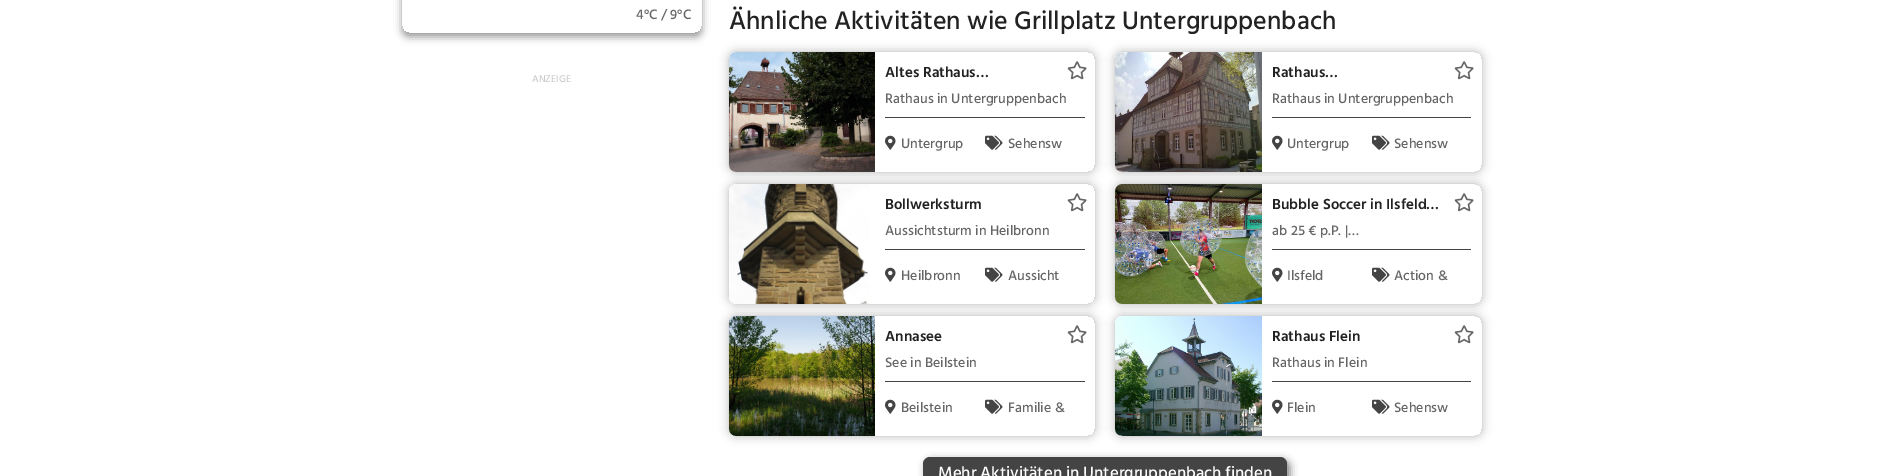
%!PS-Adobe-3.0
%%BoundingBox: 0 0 1883 476
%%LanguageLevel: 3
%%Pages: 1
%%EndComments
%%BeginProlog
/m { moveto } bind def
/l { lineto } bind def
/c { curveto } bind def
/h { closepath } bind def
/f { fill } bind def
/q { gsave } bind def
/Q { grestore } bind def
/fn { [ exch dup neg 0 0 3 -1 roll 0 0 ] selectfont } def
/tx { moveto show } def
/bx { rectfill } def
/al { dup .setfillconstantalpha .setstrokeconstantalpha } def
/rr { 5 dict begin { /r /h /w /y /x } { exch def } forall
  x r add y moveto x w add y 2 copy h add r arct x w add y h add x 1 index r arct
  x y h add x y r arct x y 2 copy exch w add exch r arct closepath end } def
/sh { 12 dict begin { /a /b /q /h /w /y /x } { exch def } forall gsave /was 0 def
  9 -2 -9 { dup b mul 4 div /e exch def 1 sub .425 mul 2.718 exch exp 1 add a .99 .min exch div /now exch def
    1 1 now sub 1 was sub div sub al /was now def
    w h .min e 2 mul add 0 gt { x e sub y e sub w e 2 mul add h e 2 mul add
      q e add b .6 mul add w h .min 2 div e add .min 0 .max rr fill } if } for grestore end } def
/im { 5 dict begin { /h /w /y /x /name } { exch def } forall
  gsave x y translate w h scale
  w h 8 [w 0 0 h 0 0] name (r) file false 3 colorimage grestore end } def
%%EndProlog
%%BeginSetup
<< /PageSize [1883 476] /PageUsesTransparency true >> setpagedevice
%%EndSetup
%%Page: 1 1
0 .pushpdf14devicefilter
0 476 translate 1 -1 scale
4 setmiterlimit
1 setgray
0 0 1883 476 bx
q
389 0 m 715 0 l 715 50 l 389 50 l h 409 -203 m 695 -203 l 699 -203 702 -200 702 -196 c 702 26 l 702 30 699 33 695 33 c 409 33 l 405 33 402 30 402 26 c 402 -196 l 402 -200 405 -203 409 -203 c h eoclip newpath
0 setgray
402 -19 300 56 7 4 0.4 sh
Q
/Hind-Medium 14 fn
0.4 setgray
(4°C / 9°C) 636 19 tx
/Hind-Medium 10 fn
0.8 setgray
(ANZEIGE) 532 82 tx
/Hind-Medium 26 fn
0.133 setgray
(Ähnliche Aktivitäten wie Grillplatz Untergruppenbach) 729 29 tx
q
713 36 m 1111 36 l 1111 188 l 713 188 l h 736 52 m 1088 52 l 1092 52 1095 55 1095 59 c 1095 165 l 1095 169 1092 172 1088 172 c 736 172 l 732 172 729 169 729 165 c 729 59 l 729 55 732 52 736 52 c h eoclip newpath
0.4 setgray
729 52 366 120 7 5 0.5 sh
Q
q
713 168 m 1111 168 l 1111 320 l 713 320 l h 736 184 m 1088 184 l 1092 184 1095 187 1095 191 c 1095 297 l 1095 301 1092 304 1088 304 c 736 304 l 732 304 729 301 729 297 c 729 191 l 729 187 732 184 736 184 c h eoclip newpath
0.4 setgray
729 184 366 120 7 5 0.5 sh
Q
(image0.raw) 729 52 146 120 im
/Hind-SemiBold 15 fn
(Altes Rathaus…) 885 77 tx
(image1.raw) 1067 61 20 19 im
0.267 setgray
885 117 200 1 bx
/Hind-Medium 14 fn
0.4 setgray
(Rathaus in Untergruppenbach) 885 103 tx
(image2.raw) 885 135 11 15 im
(Untergrup) 901 148 tx
(image3.raw) 985 135 18 15 im
(Sehensw) 1008 148 tx
q
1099 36 m 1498 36 l 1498 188 l 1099 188 l h 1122 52 m 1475 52 l 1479 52 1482 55 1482 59 c 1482 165 l 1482 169 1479 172 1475 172 c 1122 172 l 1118 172 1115 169 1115 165 c 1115 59 l 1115 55 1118 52 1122 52 c h eoclip newpath
1115 52 367 120 7 5 0.5 sh
Q
q
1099 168 m 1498 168 l 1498 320 l 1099 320 l h 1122 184 m 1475 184 l 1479 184 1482 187 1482 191 c 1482 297 l 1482 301 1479 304 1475 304 c 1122 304 l 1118 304 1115 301 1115 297 c 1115 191 l 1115 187 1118 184 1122 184 c h eoclip newpath
1115 184 367 120 7 5 0.5 sh
Q
(image4.raw) 1115 52 147 120 im
/Hind-SemiBold 15 fn
0.133 setgray
(Rathaus…) 1272 77 tx
(image1.raw) 1454 61 20 19 im
0.267 setgray
1272 117 199 1 bx
/Hind-Medium 14 fn
0.4 setgray
(Rathaus in Untergruppenbach) 1272 103 tx
(image2.raw) 1272 135 11 15 im
(Untergrup) 1287 148 tx
(image3.raw) 1372 135 18 15 im
(Sehensw) 1394 148 tx
q
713 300 m 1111 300 l 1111 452 l 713 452 l h 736 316 m 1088 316 l 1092 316 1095 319 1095 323 c 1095 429 l 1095 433 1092 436 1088 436 c 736 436 l 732 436 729 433 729 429 c 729 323 l 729 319 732 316 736 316 c h eoclip newpath
729 316 366 120 7 5 0.5 sh
Q
(image5.raw) 729 184 140 120 im
/Hind-SemiBold 15 fn
0.133 setgray
(Bollwerksturm) 885 209 tx
(image1.raw) 1067 193 20 19 im
0.267 setgray
885 249 200 1 bx
/Hind-Medium 14 fn
0.4 setgray
(Aussichtsturm in Heilbronn) 885 235 tx
(image2.raw) 885 267 11 15 im
(Heilbronn) 901 280 tx
(image3.raw) 985 267 18 15 im
(Aussicht) 1008 280 tx
q
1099 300 m 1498 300 l 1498 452 l 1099 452 l h 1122 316 m 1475 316 l 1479 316 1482 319 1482 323 c 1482 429 l 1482 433 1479 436 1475 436 c 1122 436 l 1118 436 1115 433 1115 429 c 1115 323 l 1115 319 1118 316 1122 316 c h eoclip newpath
1115 316 367 120 7 5 0.5 sh
Q
(image6.raw) 1115 184 147 120 im
/Hind-SemiBold 15 fn
0.133 setgray
(Bubble Soccer in Ilsfeld…) 1272 209 tx
(image1.raw) 1454 193 20 19 im
0.267 setgray
1272 249 199 1 bx
/Hind-Medium 14 fn
0.4 setgray
(ab 25 € p.P. |…) 1272 235 tx
(image2.raw) 1272 267 11 15 im
(Ilsfeld) 1287 280 tx
(image3.raw) 1372 267 18 15 im
(Action &) 1394 280 tx
(image7.raw) 729 316 146 120 im
/Hind-SemiBold 15 fn
0.133 setgray
(Annasee) 885 341 tx
(image1.raw) 1067 325 20 19 im
0.267 setgray
885 381 200 1 bx
/Hind-Medium 14 fn
0.4 setgray
(See in Beilstein) 885 367 tx
(image2.raw) 885 399 11 15 im
(Beilstein) 901 412 tx
(image3.raw) 985 399 18 15 im
(Familie &) 1008 412 tx
(image8.raw) 1115 316 147 120 im
/Hind-SemiBold 15 fn
0.133 setgray
(Rathaus Flein) 1272 341 tx
(image1.raw) 1454 325 20 19 im
0.267 setgray
1272 381 199 1 bx
/Hind-Medium 14 fn
0.4 setgray
(Rathaus in Flein) 1272 367 tx
(image2.raw) 1272 399 11 15 im
(Flein) 1287 412 tx
(image3.raw) 1372 399 18 15 im
(Sehensw) 1394 412 tx
0 setgray
926 460 364 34 7 4 0.5 sh
0.267 setgray
923 457 364 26 7 rr f
/Hind-Medium 16.75 fn
1 setgray
(Mehr Aktivitäten in Untergruppenbach finden) 938 478 tx
.poppdf14devicefilter showpage
%%EOF
